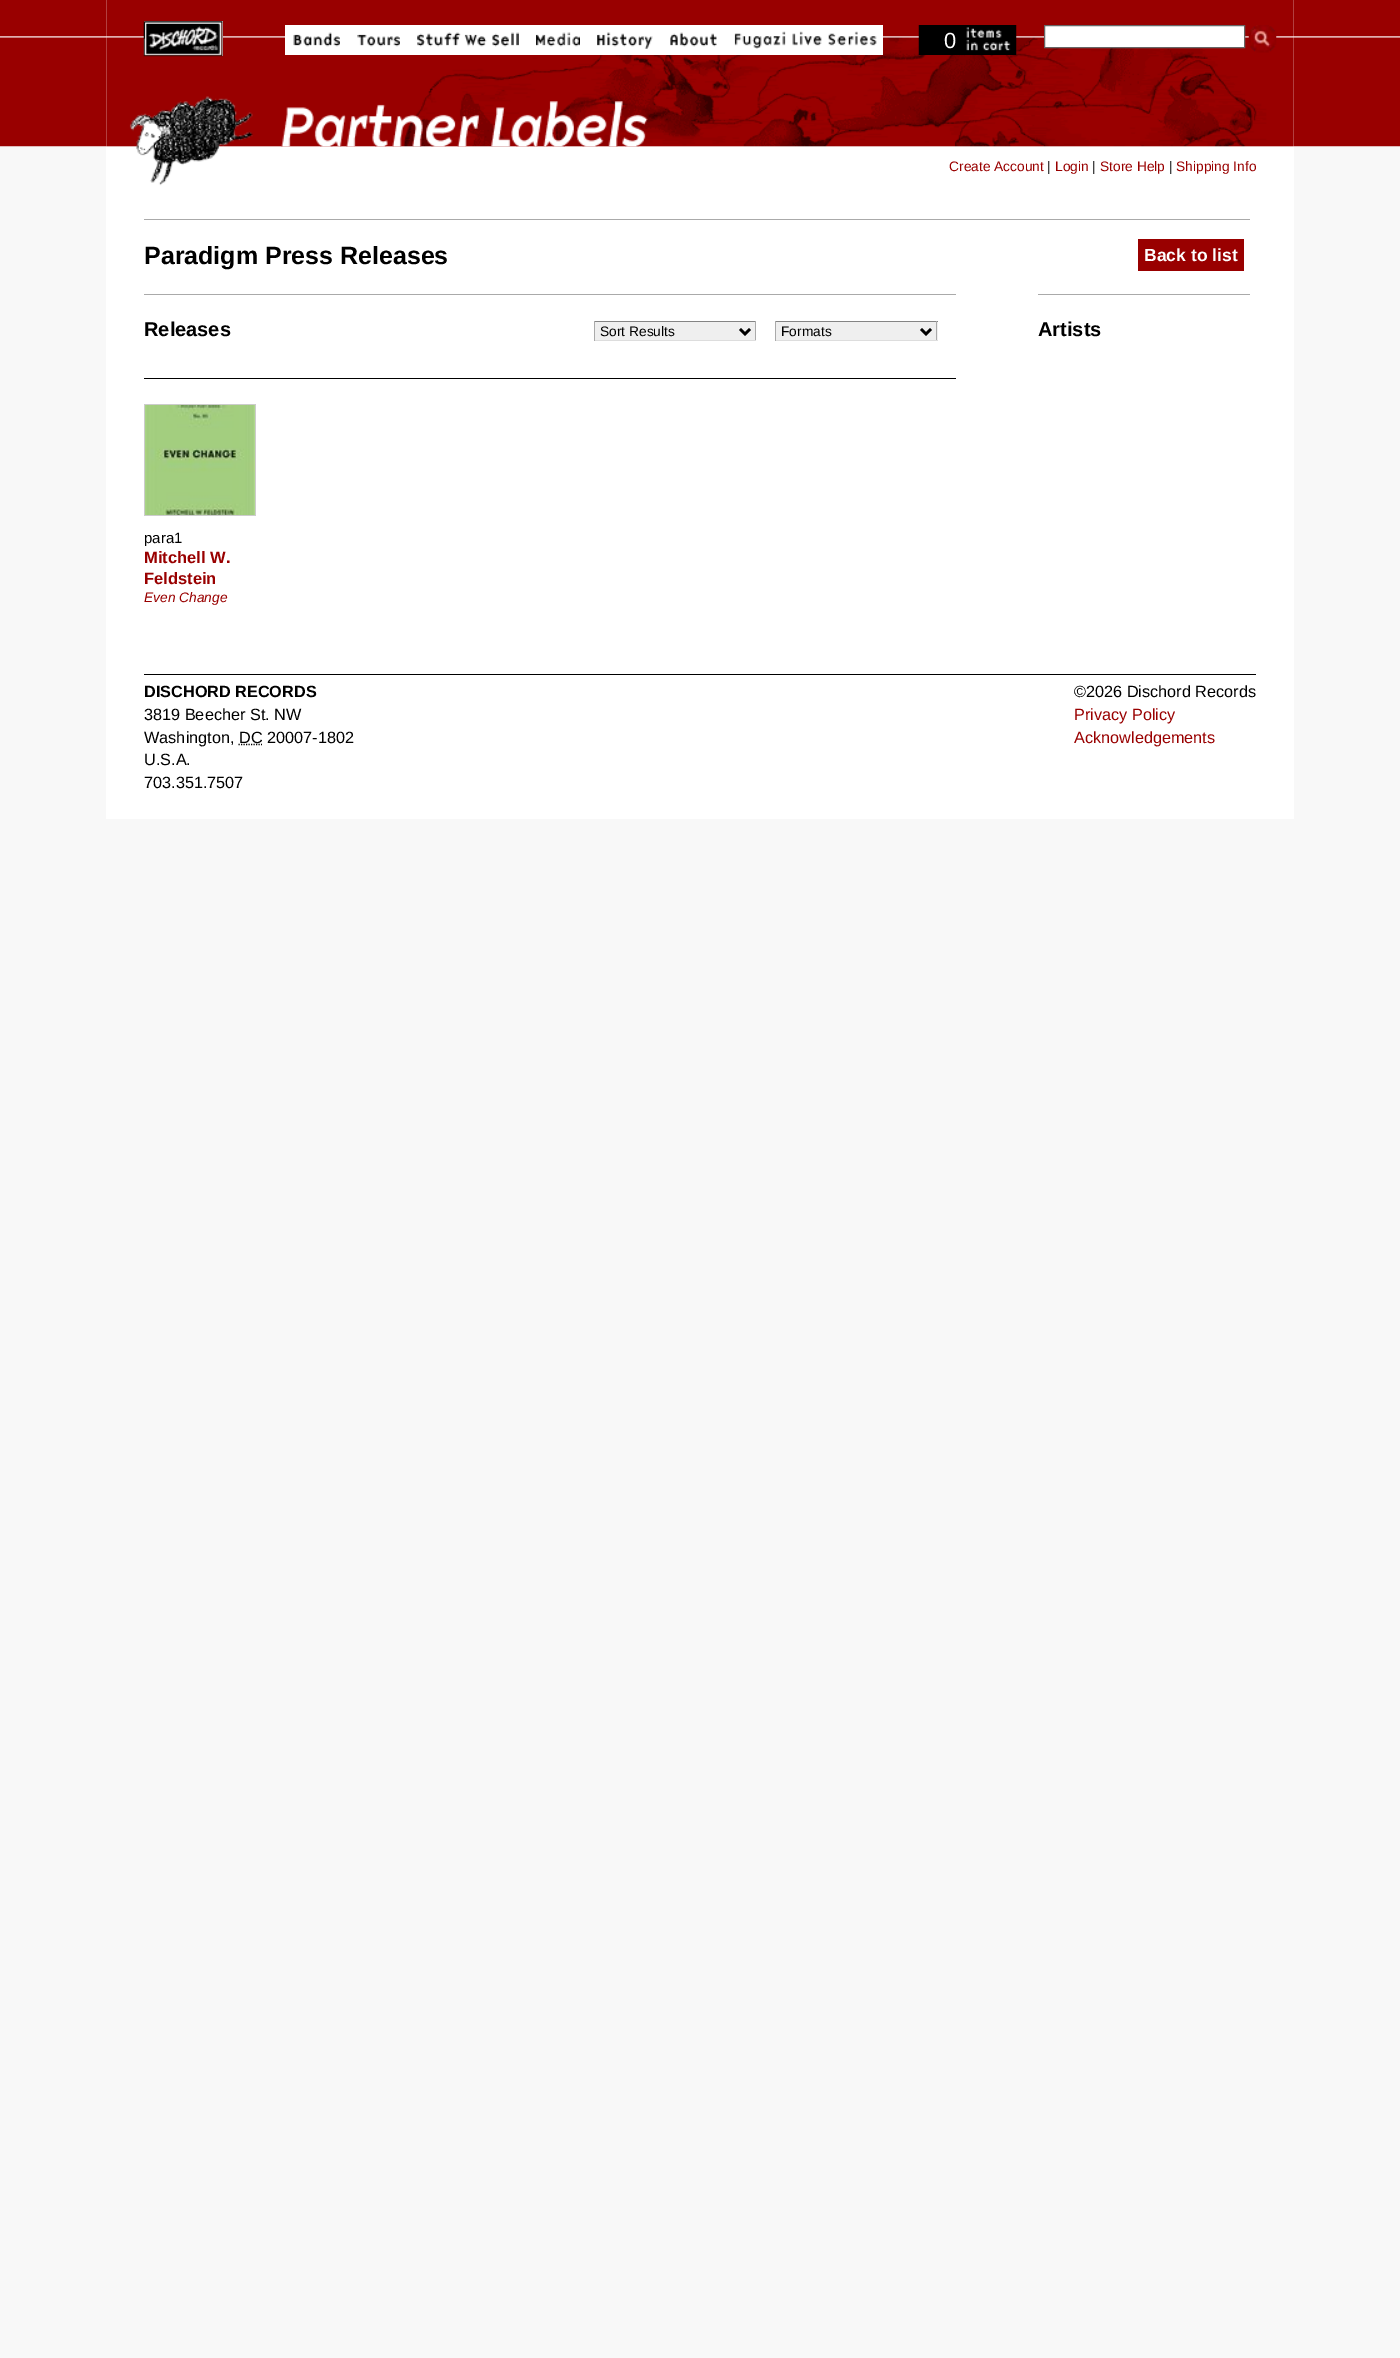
%!PS-Adobe-3.0
%%BoundingBox: 0 0 1400 2358
%%LanguageLevel: 3
%%Pages: 1
%%EndComments
%%BeginProlog
/m { moveto } bind def
/l { lineto } bind def
/h { closepath } bind def
/f { fill } bind def
/S { stroke } bind def
/q { gsave } bind def
/Q { grestore } bind def
/w { setlinewidth } bind def
/fn { [ exch dup neg 0 0 3 -1 roll 0 0 ] selectfont } def
/tx { moveto show } def
/bx { rectfill } def
/im { 5 dict begin { /h /w /y /x /name } { exch def } forall
  gsave x y translate w h scale
  w h 8 [w 0 0 h 0 0] name (r) file false 3 colorimage grestore end } def
%%EndProlog
%%BeginSetup
<< /PageSize [1400 2358] >> setpagedevice
%%EndSetup
%%Page: 1 1
0 2358 translate 1 -1 scale
4 setmiterlimit
0.973 setgray
0 0 1400 2358 bx
(image0.raw) 0 0 1400 147 im
1 setgray
106 0 1188 819 bx
(image1.raw) 106 0 1188 186 im
144 21 79 35 bx
(image2.raw) 143 21 80 36 im
285 25 598 30 bx
(image3.raw) 293 32 47 15 im
(image4.raw) 293 35 1 10 im
(image5.raw) 357 34 43 13 im
(image6.raw) 357 35 1 3 im
(image7.raw) 417 32 102 15 im
(image8.raw) 417 32 102 14 im
(image9.raw) 536 32 44 15 im
(image10.raw) 536 35 1 11 im
(image11.raw) 597 32 56 17 im
(image12.raw) 597 35 56 11 im
(image13.raw) 670 32 47 15 im
(image14.raw) 716 36 1 10 im
(image15.raw) 734 31 143 18 im
(image16.raw) 871 36 1 9 im
(image17.raw) 918 25 99 30 im
/LiberationSans-Regular 22 fn
(0) 944 48 tx
1044.5 25.5 m 1244.5 25.5 l 1244.5 47.5 l 1044.5 47.5 l h q f Q
0.4 setgray
S
(image18.raw) 1248 25 29 28 im
(image19.raw) 281 101 367 46 im
/LiberationSans-Regular 13.75 fn
0.6 0 0 setrgbcolor
(Create Account) 949 171 tx
0 setgray
(|) 1047 171 tx
0.6 0 0 setrgbcolor
(Login) 1055 171 tx
0 setgray
(|) 1092 171 tx
0.6 0 0 setrgbcolor
(Store Help) 1100 171 tx
0 setgray
(|) 1169 171 tx
0.6 0 0 setrgbcolor
(Shipping Info) 1176 171 tx
0.667 setgray
144 219 1106 1 bx
/LiberationSans-Bold 25 fn
0 setgray
(Paradigm Press Releases) 144 264 tx
0.6 0 0 setrgbcolor
1138 239 106 32 bx
/LiberationSans-Bold 17.5 fn
1 setgray
(Back to list) 1144 261 tx
0.667 setgray
144 294 812 1 bx
/LiberationSans-Bold 20 fn
0 setgray
(Releases) 144 336 tx
0.937 setgray
595 322 160 18 bx
0.518 setgray
594 321 162 1 bx
0.667 setgray
755 321 1 20 bx
0.867 setgray
594 340 162 1 bx
0.667 setgray
594 321 1 20 bx
0 setgray
2.5 w
740 329 m 745 334 l 750 329 l S
/LiberationSans-Regular 13.75 fn
(Sort Results) 600 336 tx
0.937 setgray
776 322 162 18 bx
0.518 setgray
775 321 163 1 bx
0.667 setgray
936 321 1 20 bx
0.867 setgray
775 340 163 1 bx
0.667 setgray
775 321 1 20 bx
0 setgray
921 329 m 926 334 l 931 329 l S
(Formats) 781 336 tx
144 378 812 1 bx
0.8 setgray
144 404 112 112 bx
(image20.raw) 145 405 110 110 im
/LiberationSans-Regular 15 fn
0 setgray
(para1) 144 543 tx
/LiberationSans-Bold 16.5 fn
0.6 0 0 setrgbcolor
(Mitchell W.) 144 563 tx
(Feldstein) 144 584 tx
/LiberationSans-Italic 13.75 fn
(Even Change) 144 602 tx
0.667 setgray
1038 294 212 1 bx
/LiberationSans-Bold 20 fn
0 setgray
(Artists) 1038 336 tx
144 674 1112 1 bx
/LiberationSans-Bold 16.25 fn
(DISCHORD RECORDS) 144 697 tx
/LiberationSans-Regular 16.25 fn
(3819 Beecher St. NW) 144 720 tx
(Washington,) 144 743 tx
1.2 w
[1.25 1.25] 0 setdash
238.5 744.5 m 262 744.5 l S
(DC 20007-1802) 239 743 tx
(U.S.A.) 144 765 tx
(703.351.7507) 144 788 tx
(©2026 Dischord Records) 1074 697 tx
0.6 0 0 setrgbcolor
(Privacy Policy) 1074 720 tx
(Acknowledgements) 1074 743 tx
showpage
%%EOF
